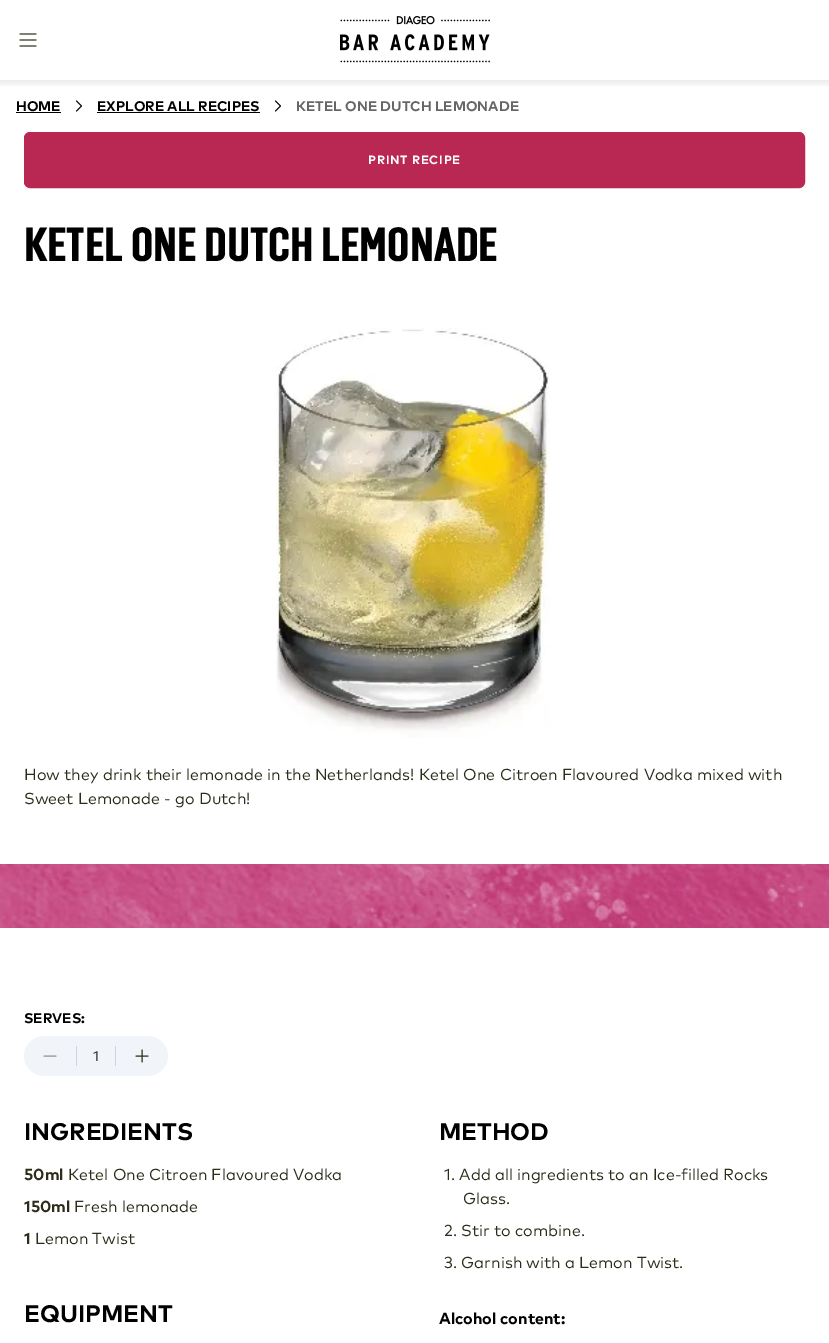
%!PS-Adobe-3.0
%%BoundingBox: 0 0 829 1343
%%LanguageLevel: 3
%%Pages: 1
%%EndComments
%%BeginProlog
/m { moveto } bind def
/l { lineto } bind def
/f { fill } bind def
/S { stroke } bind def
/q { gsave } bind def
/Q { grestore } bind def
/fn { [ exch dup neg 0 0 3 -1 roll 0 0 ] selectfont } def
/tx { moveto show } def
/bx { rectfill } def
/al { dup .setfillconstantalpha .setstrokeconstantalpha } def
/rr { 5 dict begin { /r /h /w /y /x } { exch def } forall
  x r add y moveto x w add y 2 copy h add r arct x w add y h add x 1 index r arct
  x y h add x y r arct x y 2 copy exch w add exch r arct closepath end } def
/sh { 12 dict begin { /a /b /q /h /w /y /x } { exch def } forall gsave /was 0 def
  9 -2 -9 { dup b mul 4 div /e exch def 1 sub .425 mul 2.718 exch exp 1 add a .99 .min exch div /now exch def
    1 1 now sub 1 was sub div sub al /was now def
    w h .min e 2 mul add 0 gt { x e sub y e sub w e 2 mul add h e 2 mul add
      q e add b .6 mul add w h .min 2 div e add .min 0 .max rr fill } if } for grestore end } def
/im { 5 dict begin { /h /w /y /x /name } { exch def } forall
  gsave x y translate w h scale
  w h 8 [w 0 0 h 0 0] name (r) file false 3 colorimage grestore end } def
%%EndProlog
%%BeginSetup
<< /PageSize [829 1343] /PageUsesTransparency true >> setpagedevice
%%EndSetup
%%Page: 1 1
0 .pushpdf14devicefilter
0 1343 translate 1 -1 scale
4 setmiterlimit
1 setgray
0 0 829 1343 bx
q
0 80 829 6 rectclip
0 setgray
-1 -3 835 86 0 4 0.1 sh
Q
(image0.raw) 19 33 18 14 im
(image1.raw) 340 16 150 47 im
/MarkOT-Bold 14 fn
0 setgray
(HOME) 16 111 tx
16 112 45 1 bx
1 setlinecap
1 setlinejoin
76.5 111 m 81.5 106 l 76.5 101 l S
(EXPLORE ALL RECIPES) 97 111 tx
97 112 163 1 bx
275.5 111 m 280.5 106 l 275.5 101 l S
0.4 setgray
(KETEL ONE DUTCH LEMONADE) 296 111 tx
0.722 0.157 0.325 setrgbcolor
24.5 132.5 780 55 5.5 rr q f Q
0 setlinecap
0 setlinejoin
S
/MarkOT-Bold 12 fn
1 setgray
368 164 m 0.75 0 (PRINT RECIPE) ashow
/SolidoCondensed-ExtraBold 48 fn
0 setgray
(KETEL ONE DUTCH LEMONADE) 24 261 tx
(image2.raw) 276 328 274 410 im
/MarkOT-Regular 16 fn
0.176 0.173 0.102 setrgbcolor
(How they drink their lemonade in the Netherlands! Ketel One Citroen Flavoured Vodka mixed with) 24 780 tx
(Sweet Lemonade - go Dutch!) 24 804 tx
(image3.raw) 0 864 829 64 im
/MarkOT-Bold 14 fn
0 setgray
(SERVES:) 24 1023 tx
0.945 0.961 0.976 setrgbcolor
24 1036 144 40 20 rr f
0.561 0.569 0.541 setrgbcolor
1 setlinecap
1 setlinejoin
44 1056 m 56 1056 l S
0.796 0.835 0.882 setrgbcolor
76 1046 1 20 bx
/MarkOT-Regular 14 fn
0.176 0.173 0.102 setrgbcolor
(1) 93 1061 tx
0.796 0.835 0.882 setrgbcolor
115 1046 1 20 bx
0.176 0.173 0.102 setrgbcolor
136 1056 m 148 1056 l 142 1050 m 142 1062 l S
/MarkOT-Bold 24 fn
0 setgray
(INGREDIENTS) 24 1140 tx
/MarkOT-Bold 16 fn
0.176 0.173 0.102 setrgbcolor
(50ml) 24 1180 tx
/MarkOT-Regular 16 fn
(Ketel One Citroen Flavoured Vodka) 68 1180 tx
/MarkOT-Bold 16 fn
(150ml) 24 1212 tx
/MarkOT-Regular 16 fn
(Fresh lemonade) 74 1212 tx
/MarkOT-Bold 16 fn
(1) 24 1244 tx
/MarkOT-Regular 16 fn
(Lemon Twist) 35 1244 tx
/MarkOT-Bold 24 fn
0 setgray
(EQUIPMENT) 24 1322 tx
(METHOD) 439 1140 tx
/MarkOT-Regular 16 fn
0.176 0.173 0.102 setrgbcolor
(1. Add all ingredients to an Ice-filled Rocks) 444 1180 tx
(Glass.) 463 1204 tx
(2. Stir to combine.) 444 1236 tx
(3. Garnish with a Lemon Twist.) 444 1268 tx
/MarkOT-Bold 16 fn
0 setgray
(Alcohol content:) 439 1324 tx
.poppdf14devicefilter showpage
%%EOF
